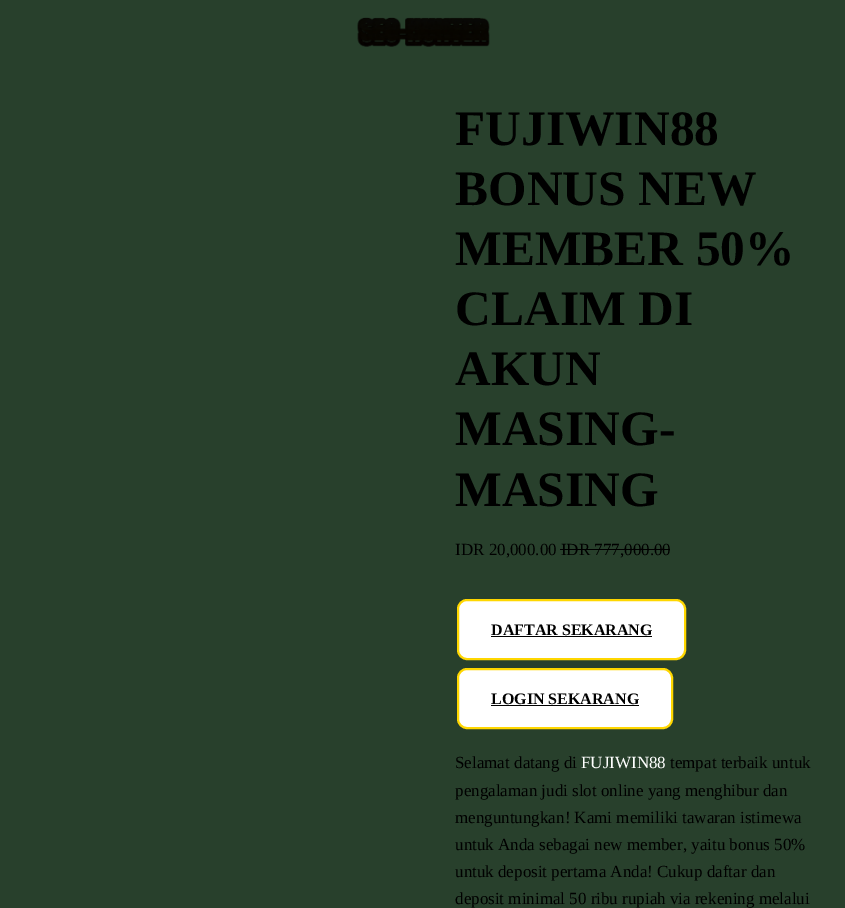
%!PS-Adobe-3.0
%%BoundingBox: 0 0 845 908
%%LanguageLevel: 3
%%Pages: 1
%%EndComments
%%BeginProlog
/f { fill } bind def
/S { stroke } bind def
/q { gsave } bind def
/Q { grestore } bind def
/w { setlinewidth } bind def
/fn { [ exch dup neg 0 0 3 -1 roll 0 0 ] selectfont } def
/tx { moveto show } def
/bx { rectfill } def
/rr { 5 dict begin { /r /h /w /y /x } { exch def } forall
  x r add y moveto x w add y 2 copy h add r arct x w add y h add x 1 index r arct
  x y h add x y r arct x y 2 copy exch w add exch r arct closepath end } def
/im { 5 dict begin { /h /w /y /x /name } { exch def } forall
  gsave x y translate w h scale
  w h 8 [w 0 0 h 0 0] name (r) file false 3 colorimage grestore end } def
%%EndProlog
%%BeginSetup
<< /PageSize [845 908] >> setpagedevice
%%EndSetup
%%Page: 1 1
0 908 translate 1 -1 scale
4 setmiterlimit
0.157 0.251 0.173 setrgbcolor
0 0 845 908 bx
(image0.raw) 357 17 133 30 im
/LiberationSerif-Bold 49.5 fn
0 setgray
(FUJIWIN88) 455 145 tx
(BONUS NEW) 455 205 tx
(MEMBER 50%) 455 265 tx
(CLAIM DI) 455 325 tx
(AKUN) 455 385 tx
(MASING-) 455 445 tx
(MASING) 455 506 tx
/LiberationSerif-Regular 17 fn
(IDR 20,000.00 IDR 777,000.00) 455 555 tx
560 549 110 1 bx
1 setgray
458 600 227 59 9 rr q f Q
1 0.843 0 setrgbcolor
2 w
S
/LiberationSerif-Bold 16 fn
0 setgray
(DAFTAR SEKARANG) 491 635 tx
491 636 161 1 bx
1 setgray
458 669 214 59 9 rr q f Q
1 0.843 0 setrgbcolor
S
0 setgray
(LOGIN SEKARANG) 491 704 tx
491 705 148 1 bx
/LiberationSerif-Regular 17 fn
(Selamat datang di) 455 768 tx
1 setgray
(FUJIWIN88) 581 768 tx
0 setgray
(tempat terbaik untuk) 670 768 tx
(pengalaman judi slot online yang menghibur dan) 455 796 tx
(menguntungkan! Kami memiliki tawaran istimewa) 455 823 tx
(untuk Anda sebagai new member, yaitu bonus 50%) 455 850 tx
(untuk deposit pertama Anda! Cukup daftar dan) 455 877 tx
(deposit minimal 50 ribu rupiah via rekening melalui) 455 904 tx
showpage
%%EOF
